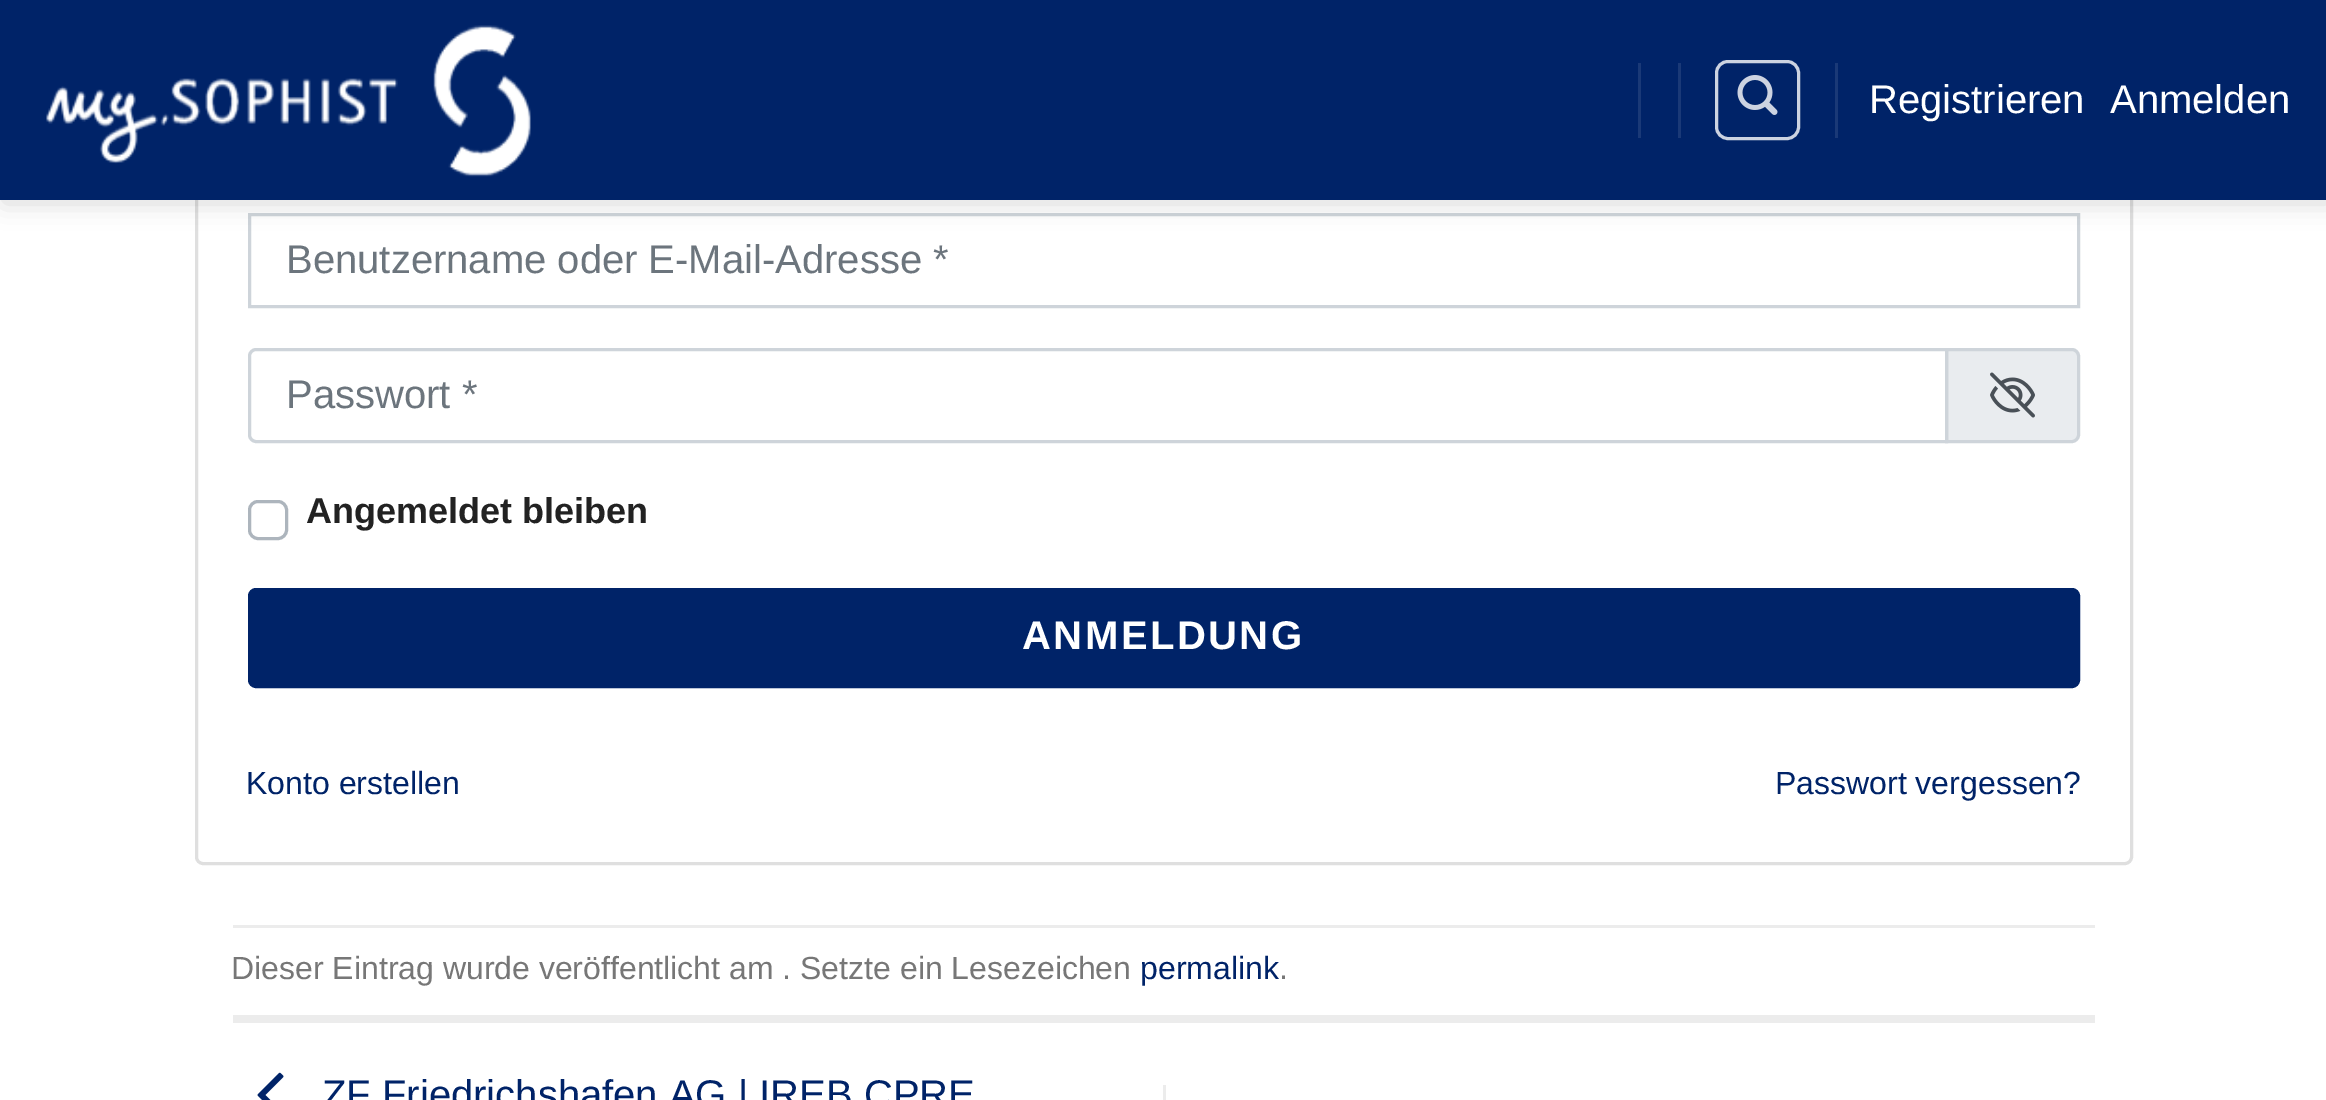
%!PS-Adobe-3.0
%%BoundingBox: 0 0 2326 1100
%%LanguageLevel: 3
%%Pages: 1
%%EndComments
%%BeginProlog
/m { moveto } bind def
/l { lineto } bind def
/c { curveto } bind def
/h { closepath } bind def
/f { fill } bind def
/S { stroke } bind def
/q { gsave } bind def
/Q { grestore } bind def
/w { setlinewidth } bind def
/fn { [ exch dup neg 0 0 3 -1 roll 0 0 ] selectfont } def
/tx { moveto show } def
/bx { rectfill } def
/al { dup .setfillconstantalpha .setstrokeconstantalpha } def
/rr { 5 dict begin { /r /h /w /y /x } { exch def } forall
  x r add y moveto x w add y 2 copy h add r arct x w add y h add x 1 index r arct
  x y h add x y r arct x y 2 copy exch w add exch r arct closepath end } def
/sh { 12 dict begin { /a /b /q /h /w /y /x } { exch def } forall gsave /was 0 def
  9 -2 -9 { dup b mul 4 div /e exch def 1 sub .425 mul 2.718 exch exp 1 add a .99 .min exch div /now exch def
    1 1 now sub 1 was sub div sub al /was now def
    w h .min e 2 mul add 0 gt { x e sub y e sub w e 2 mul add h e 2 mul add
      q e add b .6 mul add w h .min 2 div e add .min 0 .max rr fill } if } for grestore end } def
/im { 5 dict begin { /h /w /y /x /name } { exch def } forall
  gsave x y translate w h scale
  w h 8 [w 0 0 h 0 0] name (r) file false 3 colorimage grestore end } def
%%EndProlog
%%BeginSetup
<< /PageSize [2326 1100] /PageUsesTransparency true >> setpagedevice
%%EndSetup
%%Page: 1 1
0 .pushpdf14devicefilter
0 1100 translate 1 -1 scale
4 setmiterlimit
1 setgray
0 0 2326 1100 bx
0.875 setgray
3 w
196.5 161.5 1935 702 6.5 rr S
0.808 0.831 0.855 setrgbcolor
249.5 214.5 1829 92 rectstroke
0 setgray
3 3 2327 200 0 12.5 0.15 sh
0 0.137 0.408 setrgbcolor
0 0 2326 200 bx
(image0.raw) 46 25 485 152 im
0.102 0.224 0.467 setrgbcolor
1638 63 3 75 bx
1678 63 3 75 bx
0.8 0.827 0.882 setrgbcolor
1716.5 61.5 82 77 11.5 rr S
(image1.raw) 1737 75 41 40 im
0.102 0.224 0.467 setrgbcolor
1835 63 3 75 bx
/LiberationSans-Regular 40 fn
1 setgray
(Registrieren) 1869 113 tx
(Anmelden) 2110 113 tx
0.424 0.459 0.49 setrgbcolor
(Benutzername oder E-Mail-Adresse *) 286 273 tx
0.914 0.925 0.937 setrgbcolor
1946.5 349.5 m 2072 349.5 l 2075.5 349.5 2078.5 352.5 2078.5 356 c 2078.5 435 l 2078.5 438.5 2075.5 441.5 2072 441.5 c 1946.5 441.5 l h q f Q
0.808 0.831 0.855 setrgbcolor
S
256 349.5 m 1946.5 349.5 l 1946.5 441.5 l 256 441.5 l 252.5 441.5 249.5 438.5 249.5 435 c 249.5 356 l 249.5 352.5 252.5 349.5 256 349.5 c h S
0.424 0.459 0.49 setrgbcolor
(Passwort *) 286 408 tx
(image2.raw) 1990 372 45 46 im
0.678 0.71 0.741 setrgbcolor
249.5 501.5 37 37 8.5 rr S
/LiberationSans-Bold 36 fn
0.133 setgray
(Angemeldet bleiben) 306 523 tx
0 0.137 0.408 setrgbcolor
249.5 589.5 1829 97 6.5 rr q f Q
S
/LiberationSans-Bold 40 fn
1 setgray
1022 649 m 2.5 0 (ANMELDUNG) ashow
/LiberationSans-Regular 32 fn
0 0.137 0.408 setrgbcolor
(Konto erstellen) 246 794 tx
(Passwort vergessen?) 1775 794 tx
0.925 setgray
233 925 1862 3 bx
233 1015 1862 8 bx
0.467 setgray
(Dieser Eintrag wurde veröffentlicht am . Setzte ein Lesezeichen) 231 979 tx
0 0.137 0.408 setrgbcolor
(permalink) 1140 979 tx
0.467 setgray
(.) 1279 979 tx
(image3.raw) 257 1072 27 28 im
/LiberationSans-Regular 40 fn
0 0.137 0.408 setrgbcolor
(ZF Friedrichshafen AG | IREB CPRE) 322 1108 tx
0.925 setgray
1163 1085 3 15 bx
.poppdf14devicefilter showpage
%%EOF
